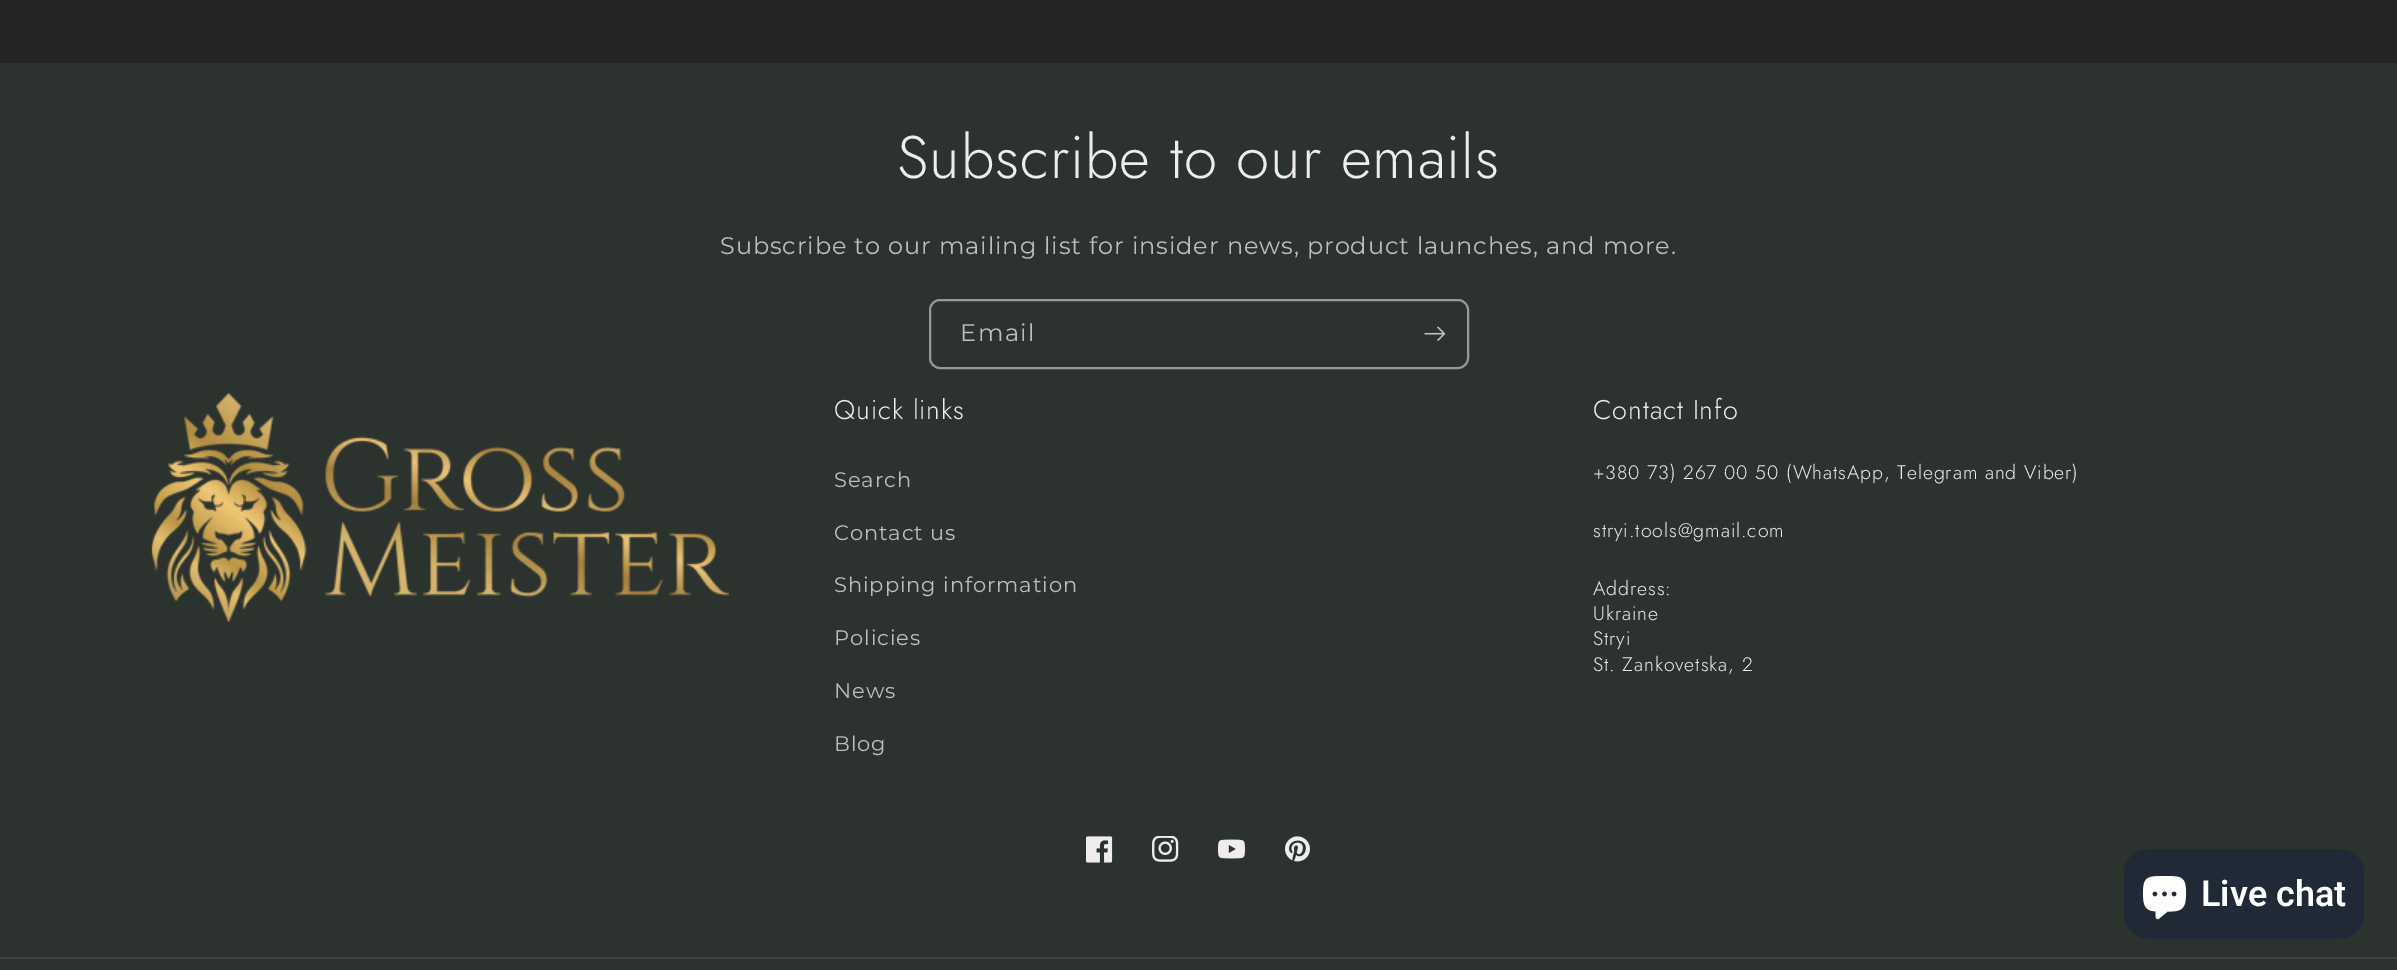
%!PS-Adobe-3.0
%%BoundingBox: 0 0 2397 970
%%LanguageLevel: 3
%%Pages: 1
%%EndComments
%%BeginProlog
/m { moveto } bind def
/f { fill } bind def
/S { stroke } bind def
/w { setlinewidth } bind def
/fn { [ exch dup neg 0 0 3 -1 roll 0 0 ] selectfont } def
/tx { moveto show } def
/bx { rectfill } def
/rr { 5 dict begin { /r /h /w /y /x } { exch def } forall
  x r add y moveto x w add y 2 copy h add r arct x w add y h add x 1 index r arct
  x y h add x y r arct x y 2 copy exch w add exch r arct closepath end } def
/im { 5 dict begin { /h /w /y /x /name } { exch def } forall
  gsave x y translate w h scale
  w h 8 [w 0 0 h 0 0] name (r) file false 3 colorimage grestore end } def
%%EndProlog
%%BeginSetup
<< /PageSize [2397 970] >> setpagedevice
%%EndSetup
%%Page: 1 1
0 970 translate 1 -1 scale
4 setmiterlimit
0.145 setgray
0 0 2397 970 bx
0.173 0.2 0.184 setrgbcolor
0 63 2397 907 bx
/Jost-Light 60 fn
0.937 0.925 0.925 setrgbcolor
897 178 m 0.9 0 (Subscribe to our emails) ashow
/Montserrat-Regular 24 fn
0.745 0.745 0.741 setrgbcolor
720 254 m 0.9 0 (Subscribe to our mailing list for insider news, product launches, and more.) ashow
0.592 0.6 0.592 setrgbcolor
2 w
930 300 538 68 10 rr S
0.745 0.745 0.741 setrgbcolor
960 341 m 1.5 0 (Email) ashow
(image0.raw) 1424 326 22 15 im
(image1.raw) 151 393 578 230 im
/Jost-Light 27 fn
0.937 0.925 0.925 setrgbcolor
834 419 m 0.9 0 (Quick links) ashow
/Montserrat-Regular 21 fn
0.745 0.745 0.741 setrgbcolor
834 487 m 0.9 0 (Search) ashow
834 540 m 0.9 0 (Contact us) ashow
834 592 m 0.9 0 (Shipping information) ashow
834 645 m 0.9 0 (Policies) ashow
834 698 m 0.9 0 (News) ashow
834 751 m 0.9 0 (Blog) ashow
/Jost-Light 27 fn
0.937 0.925 0.925 setrgbcolor
1593 419 m 0.9 0 (Contact Info) ashow
/Jost-Light 19.5 fn
1593 479 m 0.9 0 (+380 73\) 267 00 50 \(WhatsApp, Telegram and Viber\)) ashow
1593 537 m 0.9 0 (stryi.tools@gmail.com) ashow
1593 595 m 0.9 0 (Address:) ashow
1593 620 m 0.9 0 (Ukraine) ashow
1593 645 m 0.9 0 (Stryi) ashow
1593 671 m 0.9 0 (St. Zankovetska, 2) ashow
(image2.raw) 1086 836 27 27 im
(image3.raw) 1152 836 27 26 im
(image4.raw) 1218 839 27 20 im
(image5.raw) 1285 836 25 26 im
0.235 0.259 0.243 setrgbcolor
0 957 2397 2 bx
0.125 0.165 0.212 setrgbcolor
2124 849 240 90 24 rr f
(image6.raw) 2142 876 45 44 im
/Roboto-SemiBold 36 fn
1 setgray
(Live chat) 2201 906 tx
showpage
%%EOF
